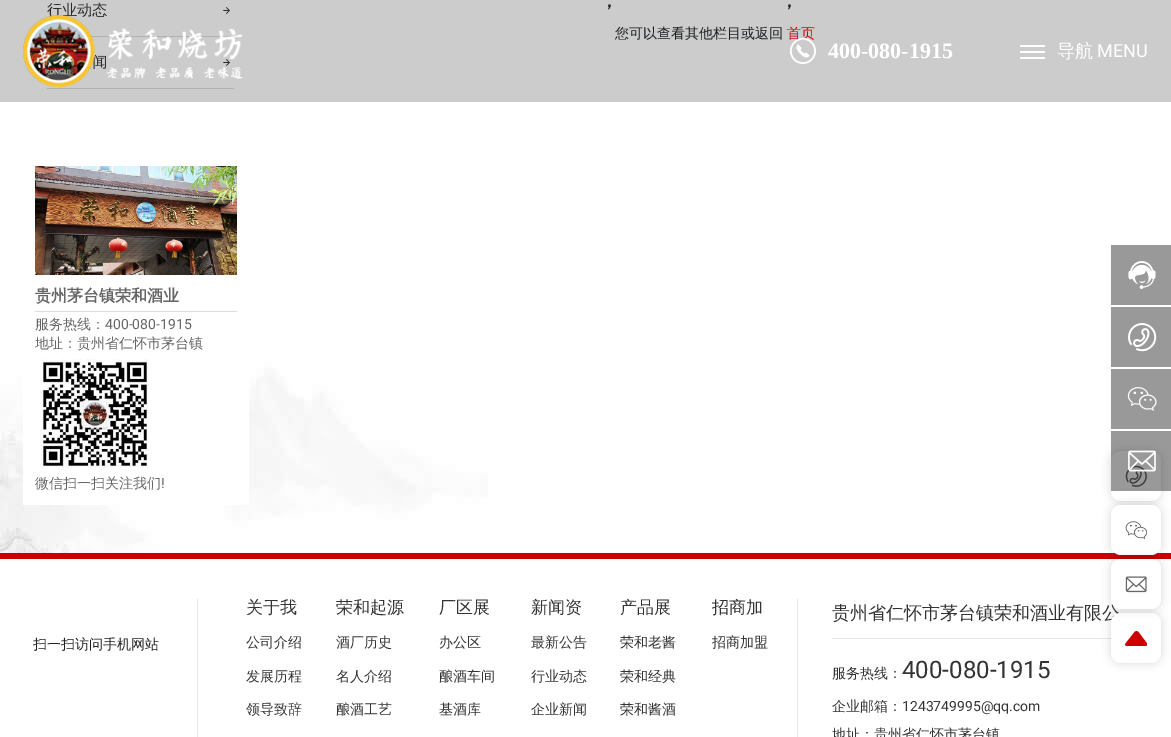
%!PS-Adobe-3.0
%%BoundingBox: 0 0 1171 737
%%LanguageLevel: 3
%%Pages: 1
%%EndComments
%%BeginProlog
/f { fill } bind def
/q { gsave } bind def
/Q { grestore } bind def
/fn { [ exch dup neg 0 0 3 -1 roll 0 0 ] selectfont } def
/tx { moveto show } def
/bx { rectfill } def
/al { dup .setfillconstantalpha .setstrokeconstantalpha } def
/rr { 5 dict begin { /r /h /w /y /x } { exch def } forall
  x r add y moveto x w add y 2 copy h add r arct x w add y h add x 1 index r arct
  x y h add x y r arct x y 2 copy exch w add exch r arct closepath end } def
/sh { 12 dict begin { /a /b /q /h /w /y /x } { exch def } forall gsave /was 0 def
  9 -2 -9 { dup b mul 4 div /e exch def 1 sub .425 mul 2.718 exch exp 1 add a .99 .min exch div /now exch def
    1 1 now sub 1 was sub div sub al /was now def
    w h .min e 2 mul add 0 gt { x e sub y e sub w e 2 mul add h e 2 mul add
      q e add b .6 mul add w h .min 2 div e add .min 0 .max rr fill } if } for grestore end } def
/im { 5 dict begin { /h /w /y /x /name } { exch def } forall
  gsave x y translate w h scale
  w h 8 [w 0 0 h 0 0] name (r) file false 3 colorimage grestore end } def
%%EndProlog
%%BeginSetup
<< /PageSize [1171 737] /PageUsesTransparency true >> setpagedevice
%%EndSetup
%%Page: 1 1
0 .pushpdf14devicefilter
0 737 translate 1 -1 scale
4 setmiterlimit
1 setgray
0 0 1171 737 bx
0.8 setgray
0 0 1171 102 bx
(image0.raw) 0 346 488 207 im
0.694 setgray
91 36 143 1 bx
/WenQuanYiZenHei-Medium 15 fn
0.161 setgray
(行业动态) 47 15 tx
(image1.raw) 223 7 7 7 im
0.694 setgray
47 88 187 1 bx
0.161 setgray
(闻) 92 67 tx
(image1.raw) 223 59 7 7 im
1 setgray
23 346 226 159 bx
(image2.raw) 35 166 202 109 im
/WenQuanYiZenHei-Bold 16 fn
0.4 setgray
(贵州茅台镇荣和酒业) 35 301 tx
0.871 setgray
35 311 202 1 bx
/WenQuanYiZenHei-Medium 14 fn
0.4 setgray
(服务热线：) 35 329 tx
/Roboto-Regular 14 fn
(400-080-1915) 105 329 tx
/WenQuanYiZenHei-Medium 14 fn
(地址：贵州省仁怀市茅台镇) 35 348 tx
(image3.raw) 40 359 109 109 im
(微信扫一扫关注我们) 35 488 tx
/Roboto-Regular 14 fn
(!) 161 488 tx
/WenQuanYiZenHei-Bold 18 fn
0.102 0.118 0.129 setrgbcolor
(，) 600 7 tx
(，) 780 7 tx
/WenQuanYiZenHei-Medium 14 fn
(您可以查看其他栏目或返回) 615 38 tx
0.8 0 0 setrgbcolor
(首页) 787 38 tx
(image4.raw) 23 15 220 72 im
(image5.raw) 789 38 27 26 im
/LiberationSerif-Bold 22 fn
1 setgray
(400-080-1915) 828 58 tx
1020 45 25 2 bx
1020 51 25 2 bx
1020 57 25 2 bx
/WenQuanYiZenHei-Medium 18 fn
(导航) 1057 57 tx
/Roboto-Regular 18 fn
(MENU) 1097 57 tx
0.804 0 0 setrgbcolor
0 553 1171 6 bx
/WenQuanYiZenHei-Medium 14 fn
0.129 setgray
(扫一扫访问手机网站) 33 649 tx
0.902 setgray
797 599 1 138 bx
197 599 1 138 bx
/WenQuanYiZenHei-Medium 17 fn
0.2 setgray
(关于我) 246 613 tx
/WenQuanYiZenHei-Medium 14 fn
(公司介绍) 246 647 tx
(发展历程) 246 681 tx
(领导致辞) 246 714 tx
/WenQuanYiZenHei-Medium 17 fn
(荣和起源) 336 613 tx
/WenQuanYiZenHei-Medium 14 fn
(酒厂历史) 336 647 tx
(名人介绍) 336 681 tx
(酿酒工艺) 336 714 tx
/WenQuanYiZenHei-Medium 17 fn
(厂区展) 439 613 tx
/WenQuanYiZenHei-Medium 14 fn
(办公区) 439 647 tx
(酿酒车间) 439 681 tx
(基酒库) 439 714 tx
/WenQuanYiZenHei-Medium 17 fn
(新闻资) 531 613 tx
/WenQuanYiZenHei-Medium 14 fn
(最新公告) 531 647 tx
(行业动态) 531 681 tx
(企业新闻) 531 714 tx
/WenQuanYiZenHei-Medium 17 fn
(产品展) 620 613 tx
/WenQuanYiZenHei-Medium 14 fn
(荣和老酱) 620 647 tx
(荣和经典) 620 681 tx
(荣和酱酒) 620 714 tx
q
712 599 59 17 rectclip
/WenQuanYiZenHei-Medium 17 fn
(招商加) 712 613 tx
Q
q
712 626 59 34 rectclip
(招商加盟) 712 647 tx
Q
/WenQuanYiZenHei-Medium 18 fn
(贵州省仁怀市茅台镇荣和酒业有限公) 832 619 tx
0.902 setgray
832 638 279 1 bx
/WenQuanYiZenHei-Medium 14 fn
0.2 setgray
(服务热线：) 832 678 tx
/Roboto-Regular 24 fn
(400-080-1915) 902 678 tx
/WenQuanYiZenHei-Medium 14 fn
(企业邮箱：) 832 711 tx
/Roboto-Regular 14 fn
(1243749995@qq.com) 902 711 tx
/WenQuanYiZenHei-Medium 14 fn
(地址：贵州省仁怀市茅台镇) 832 739 tx
0 setgray
1111 451 50 50 10 5 0.15 sh
1 setgray
1111 451 50 50 10 rr f
(image6.raw) 1125 465 22 22 im
0 setgray
1111 505 50 50 10 5 0.15 sh
1 setgray
1111 505 50 50 10 rr f
(image7.raw) 1125 521 22 18 im
0 setgray
1111 613 50 50 10 5 0.15 sh
1 setgray
1111 613 50 50 10 rr f
0 setgray
1111 559 50 50 10 5 0.15 sh
1 setgray
1111 559 50 50 10 rr f
(image8.raw) 1125 576 22 17 im
(image9.raw) 1125 631 22 15 im
0.6 setgray
1111 245 60 60 bx
(image10.raw) 1128 261 28 28 im
1111 307 60 60 bx
(image11.raw) 1128 323 29 29 im
1111 369 60 60 bx
(image12.raw) 1127 387 30 24 im
0.4 al
0 setgray
1111 431 60 60 bx
1 al
(image13.raw) 1128 450 28 22 im
.poppdf14devicefilter showpage
%%EOF
